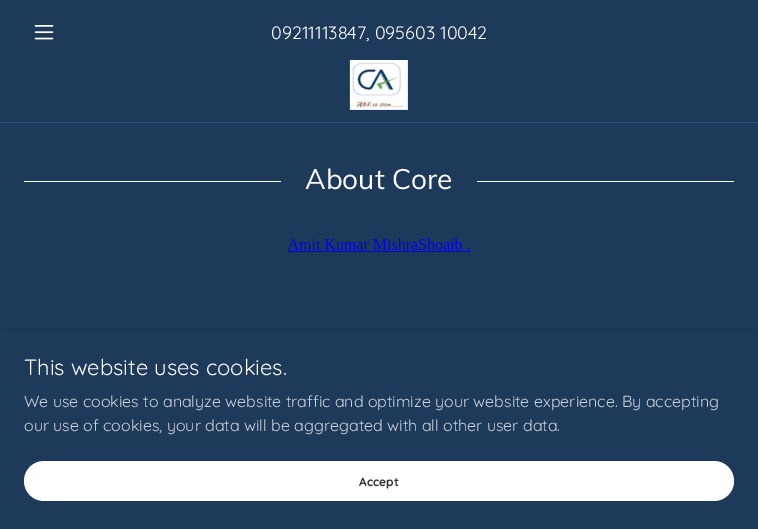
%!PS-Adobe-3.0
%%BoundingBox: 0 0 758 529
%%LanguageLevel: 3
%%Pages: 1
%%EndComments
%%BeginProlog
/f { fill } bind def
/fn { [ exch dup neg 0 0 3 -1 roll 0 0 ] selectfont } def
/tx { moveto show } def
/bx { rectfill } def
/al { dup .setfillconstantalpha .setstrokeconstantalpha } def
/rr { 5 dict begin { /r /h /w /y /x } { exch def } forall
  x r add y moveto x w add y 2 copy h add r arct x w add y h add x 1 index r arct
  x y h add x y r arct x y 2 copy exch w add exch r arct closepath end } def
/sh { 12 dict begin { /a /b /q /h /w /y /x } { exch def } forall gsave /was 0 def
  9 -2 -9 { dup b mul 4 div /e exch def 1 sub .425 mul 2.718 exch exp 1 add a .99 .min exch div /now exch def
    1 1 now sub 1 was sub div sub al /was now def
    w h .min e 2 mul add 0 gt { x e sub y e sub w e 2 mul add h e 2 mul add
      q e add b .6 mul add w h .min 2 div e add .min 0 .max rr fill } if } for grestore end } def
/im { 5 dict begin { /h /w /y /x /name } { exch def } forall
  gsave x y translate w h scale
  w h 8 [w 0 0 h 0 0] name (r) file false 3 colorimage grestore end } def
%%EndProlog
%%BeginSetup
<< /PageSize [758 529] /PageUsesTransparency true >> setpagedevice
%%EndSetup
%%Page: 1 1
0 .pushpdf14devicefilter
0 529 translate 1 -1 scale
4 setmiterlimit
0.114 0.227 0.353 setrgbcolor
0 0 758 529 bx
(image0.raw) 34 25 20 15 im
/Quicksand-Regular 18 fn
1 setgray
(09211113847, 095603 10042) 271 39 tx
(image1.raw) 349 60 59 50 im
0.169 0.318 0.486 setrgbcolor
0 122 758 1 bx
1 setgray
24 181 257 1 bx
/Muli-Regular 28 fn
(About Core) 305 189 tx
477 181 257 1 bx
(image2.raw) 287 238 184 14 im
0 setgray
0 332 758 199 0 3 0.3 sh
0.114 0.227 0.353 setrgbcolor
0 330 758 199 bx
/Quicksand-Regular 22 fn
1 setgray
(This website uses cookies.) 24 375 tx
/Quicksand-Regular 16 fn
0.804 0.82 0.851 setrgbcolor
(We use cookies to analyze website traffic and optimize your website experience. By accepting) 24 407 tx
(our use of cookies, your data will be aggregated with all other user data.) 24 431 tx
1 setgray
24 461 710 40 20 rr f
/Quicksand-Bold 12 fn
0.188 setgray
(Accept) 359 486 tx
.poppdf14devicefilter showpage
%%EOF
